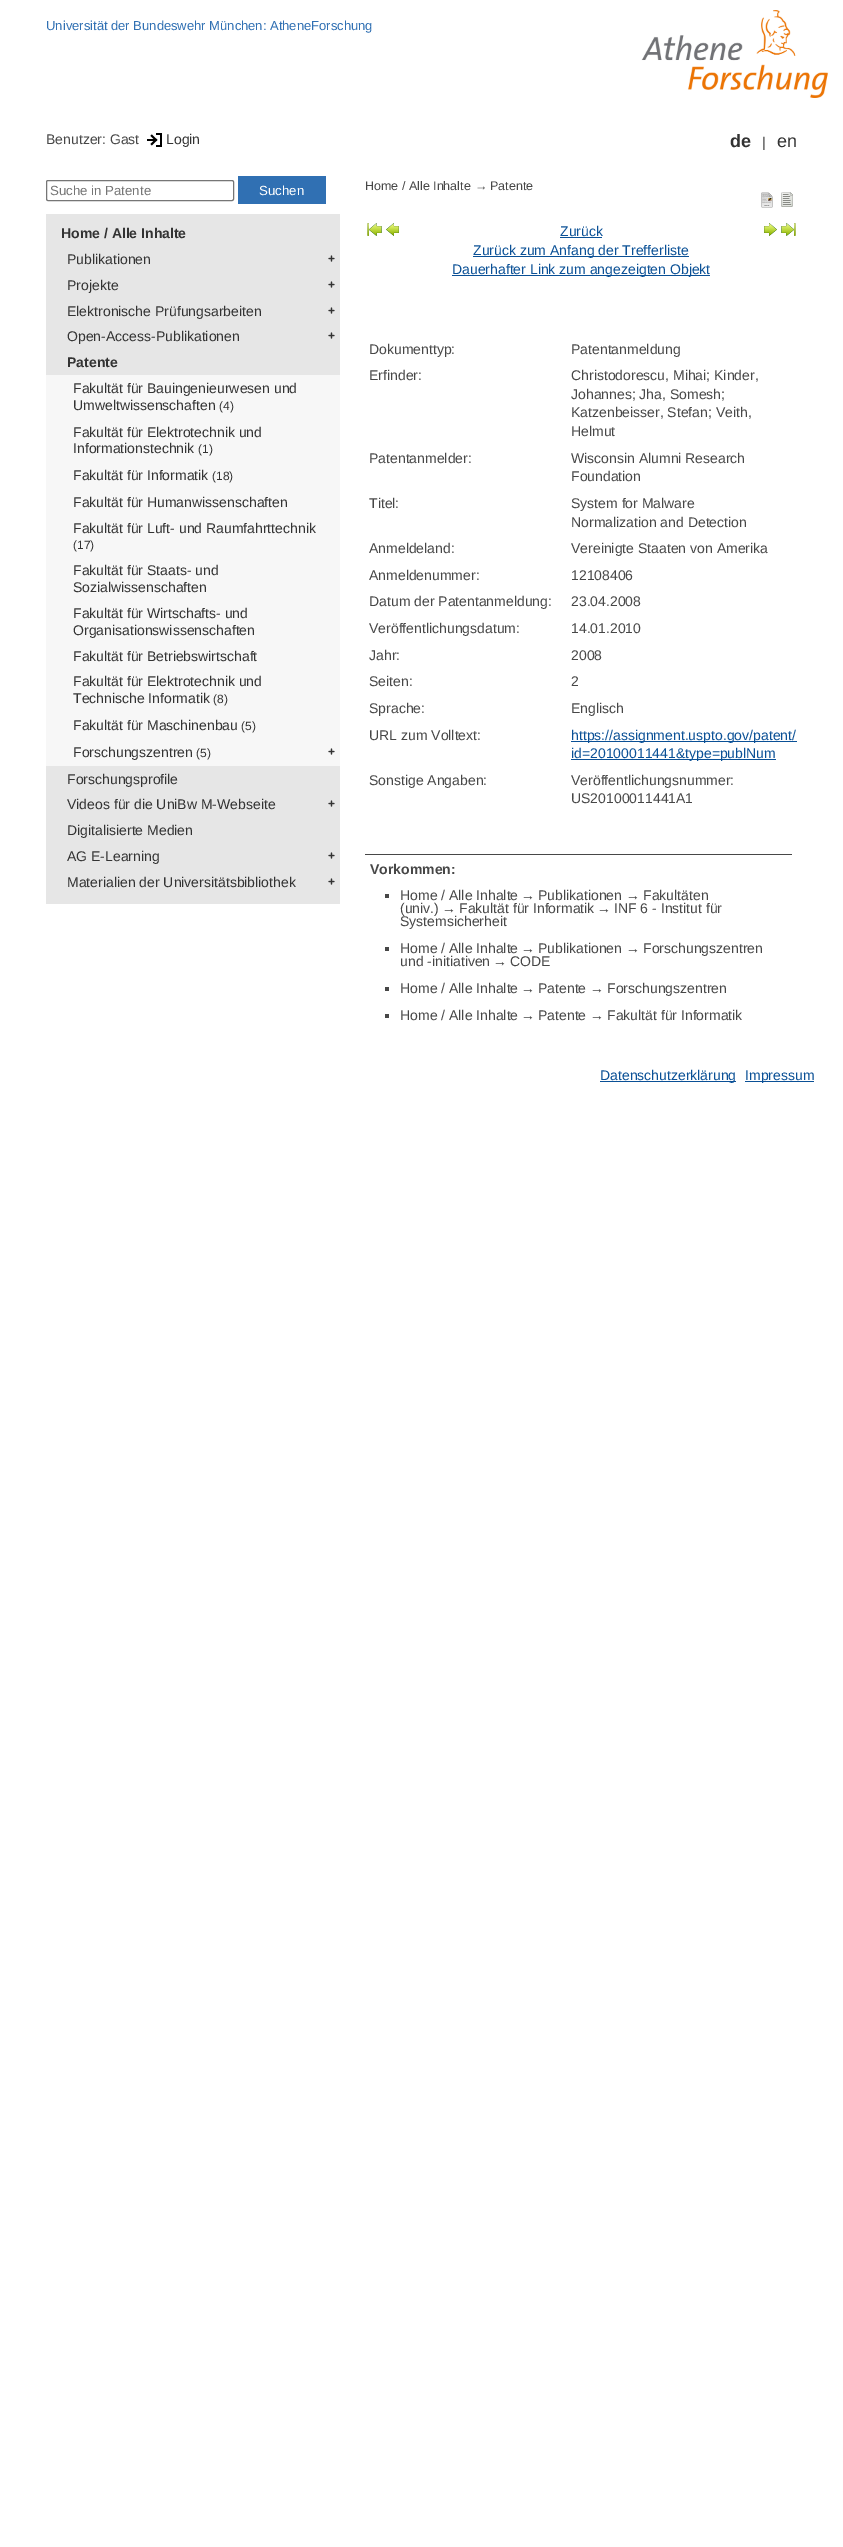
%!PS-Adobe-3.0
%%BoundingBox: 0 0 843 2547
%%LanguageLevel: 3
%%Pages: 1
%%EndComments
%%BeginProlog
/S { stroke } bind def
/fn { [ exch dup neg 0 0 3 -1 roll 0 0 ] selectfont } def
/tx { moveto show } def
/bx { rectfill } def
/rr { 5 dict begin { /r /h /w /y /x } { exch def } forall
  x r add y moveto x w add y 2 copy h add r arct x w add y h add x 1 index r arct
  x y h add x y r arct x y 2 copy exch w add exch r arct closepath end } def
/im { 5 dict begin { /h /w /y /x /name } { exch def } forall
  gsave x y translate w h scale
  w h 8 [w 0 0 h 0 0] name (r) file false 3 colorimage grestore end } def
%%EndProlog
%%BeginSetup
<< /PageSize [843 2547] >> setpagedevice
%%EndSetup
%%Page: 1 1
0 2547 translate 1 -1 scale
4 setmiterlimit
1 setgray
0 0 843 2547 bx
/LiberationSans-Regular 13 fn
0.188 0.439 0.702 setrgbcolor
(Universität der Bundeswehr München: AtheneForschung) 46 30 tx
(image0.raw) 641 10 188 88 im
/LiberationSans-Regular 14 fn
0.278 setgray
(Benutzer: Gast) 46 144 tx
(image1.raw) 147 133 15 14 im
0.2 setgray
(Login) 166 144 tx
/LiberationSans-Bold 18 fn
(de) 730 147 tx
/LiberationSans-Regular 14 fn
0.278 setgray
(|) 762 147 tx
/LiberationSans-Regular 18 fn
0.2 setgray
(en) 777 147 tx
0.463 setgray
46.5 180.5 187 20 1.5 rr S
/LiberationSans-Regular 13.25 fn
0.459 setgray
(Suche in Patente) 50 195 tx
0.188 0.439 0.702 setrgbcolor
238 176 88 28 bx
1 setgray
(Suchen) 259 195 tx
0.902 setgray
46 214 294 690 bx
/LiberationSans-Bold 14 fn
0.2 setgray
(Home / Alle Inhalte) 61 238 tx
/LiberationSans-Regular 14 fn
(Publikationen) 67 264 tx
(image2.raw) 328 255 7 7 im
(Projekte) 67 290 tx
(image2.raw) 328 281 7 7 im
(Elektronische Prüfungsarbeiten) 67 316 tx
(image2.raw) 328 307 7 7 im
(Open-Access-Publikationen) 67 341 tx
(image2.raw) 328 332 7 7 im
/LiberationSans-Bold 14 fn
(Patente) 67 367 tx
0.969 setgray
46 375 294 391 bx
/LiberationSans-Regular 14 fn
0.2 setgray
(Fakultät für Bauingenieurwesen und) 73 393 tx
(Umweltwissenschaften) 73 410 tx
/LiberationSans-Regular 12 fn
(\(4\)) 219 410 tx
/LiberationSans-Regular 14 fn
(Fakultät für Elektrotechnik und) 73 437 tx
(Informationstechnik) 73 453 tx
/LiberationSans-Regular 12 fn
(\(1\)) 198 453 tx
/LiberationSans-Regular 14 fn
(Fakultät für Informatik) 73 480 tx
/LiberationSans-Regular 12 fn
(\(18\)) 212 480 tx
/LiberationSans-Regular 14 fn
(Fakultät für Humanwissenschaften) 73 507 tx
(Fakultät für Luft- und Raumfahrttechnik) 73 533 tx
/LiberationSans-Regular 12 fn
(\(17\)) 73 549 tx
/LiberationSans-Regular 14 fn
(Fakultät für Staats- und) 73 575 tx
(Sozialwissenschaften) 73 592 tx
(Fakultät für Wirtschafts- und) 73 618 tx
(Organisationswissenschaften) 73 635 tx
(Fakultät für Betriebswirtschaft) 73 661 tx
(Fakultät für Elektrotechnik und) 73 686 tx
(Technische Informatik) 73 703 tx
/LiberationSans-Regular 12 fn
(\(8\)) 213 703 tx
/LiberationSans-Regular 14 fn
(Fakultät für Maschinenbau) 73 730 tx
/LiberationSans-Regular 12 fn
(\(5\)) 241 730 tx
/LiberationSans-Regular 14 fn
(Forschungszentren) 73 757 tx
/LiberationSans-Regular 12 fn
(\(5\)) 196 757 tx
(image3.raw) 328 748 7 7 im
/LiberationSans-Regular 14 fn
(Forschungsprofile) 67 784 tx
(Videos für die UniBw M-Webseite) 67 809 tx
(image2.raw) 328 800 7 7 im
(Digitalisierte Medien) 67 835 tx
(AG E-Learning) 67 861 tx
(image2.raw) 328 852 7 7 im
(Materialien der Universitätsbibliothek) 67 887 tx
(image2.raw) 328 878 7 7 im
/LiberationSans-Regular 12.5 fn
0.278 setgray
(Home / Alle Inhalte) 365 190 tx
(→) 475 190 tx
(Patente) 490 190 tx
(image4.raw) 761 192 12 16 im
(image5.raw) 781 192 12 15 im
(image6.raw) 367 223 15 13 im
(image7.raw) 386 223 13 13 im
/LiberationSans-Regular 14 fn
0.039 0.314 0.588 setrgbcolor
(Zurück) 560 236 tx
560 237 42 1 bx
473 256 216 1 bx
(Zurück zum Anfang der Trefferliste) 473 255 tx
452 275 258 1 bx
(Dauerhafter Link zum angezeigten Objekt) 452 274 tx
(image8.raw) 764 223 13 13 im
(image9.raw) 781 223 15 13 im
0.278 setgray
(Dokumenttyp:) 369 354 tx
(Patentanmeldung) 571 354 tx
(Erfinder:) 369 380 tx
(Christodorescu, Mihai; Kinder,) 571 380 tx
(Johannes; Jha, Somesh;) 571 399 tx
(Katzenbeisser, Stefan; Veith,) 571 417 tx
(Helmut) 571 436 tx
(Patentanmelder:) 369 463 tx
(Wisconsin Alumni Research) 571 463 tx
(Foundation) 571 481 tx
(Titel:) 369 508 tx
(System for Malware) 571 508 tx
(Normalization and Detection) 571 527 tx
(Anmeldeland:) 369 553 tx
(Vereinigte Staaten von Amerika) 571 553 tx
(Anmeldenummer:) 369 580 tx
(12108406) 571 580 tx
(Datum der Patentanmeldung:) 369 606 tx
(23.04.2008) 571 606 tx
(Veröffentlichungsdatum:) 369 633 tx
(14.01.2010) 571 633 tx
(Jahr:) 369 660 tx
(2008) 571 660 tx
(Seiten:) 369 686 tx
(2) 571 686 tx
(Sprache:) 369 713 tx
(Englisch) 571 713 tx
(URL zum Volltext:) 369 740 tx
0.039 0.314 0.588 setrgbcolor
571 741 226 1 bx
(https://assignment.uspto.gov/patent/) 571 740 tx
571 759 205 1 bx
(id=20100011441&type=publNum) 571 758 tx
0.278 setgray
(Sonstige Angaben:) 369 785 tx
(Veröffentlichungsnummer:) 571 785 tx
(US20100011441A1) 571 803 tx
365 854 427 1 bx
/LiberationSans-Bold 14 fn
(Vorkommen:) 370 874 tx
385 894 4 4 bx
/LiberationSans-Regular 14 fn
(Home / Alle Inhalte) 400 900 tx
(→) 521 900 tx
(Publikationen) 538 900 tx
(→) 626 900 tx
(Fakultäten) 643 900 tx
(\(univ.\)) 400 913 tx
(→) 442 913 tx
(Fakultät für Informatik) 459 913 tx
(→) 597 913 tx
(INF 6 - Institut für) 614 913 tx
(Systemsicherheit) 400 926 tx
385 947 4 4 bx
(Home / Alle Inhalte) 400 953 tx
(→) 521 953 tx
(Publikationen) 538 953 tx
(→) 626 953 tx
(Forschungszentren) 643 953 tx
(und -initiativen) 400 966 tx
(→) 493 966 tx
(CODE) 510 966 tx
385 987 4 4 bx
(Home / Alle Inhalte) 400 993 tx
(→) 521 993 tx
(Patente) 538 993 tx
(→) 590 993 tx
(Forschungszentren) 607 993 tx
385 1014 4 4 bx
(Home / Alle Inhalte) 400 1020 tx
(→) 521 1020 tx
(Patente) 538 1020 tx
(→) 590 1020 tx
(Fakultät für Informatik) 607 1020 tx
0.039 0.314 0.588 setrgbcolor
600 1081 136 1 bx
(Datenschutzerklärung) 600 1080 tx
745 1081 69 1 bx
(Impressum) 745 1080 tx
showpage
%%EOF
